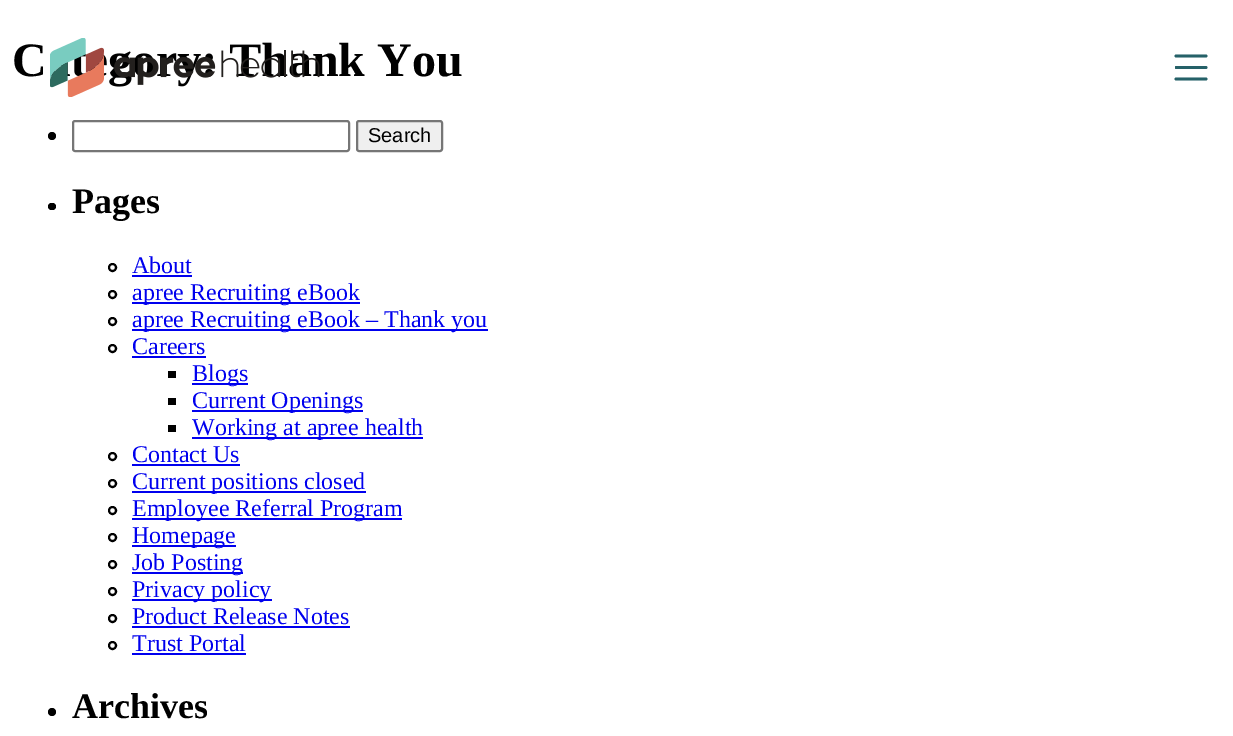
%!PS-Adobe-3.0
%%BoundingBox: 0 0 1233 736
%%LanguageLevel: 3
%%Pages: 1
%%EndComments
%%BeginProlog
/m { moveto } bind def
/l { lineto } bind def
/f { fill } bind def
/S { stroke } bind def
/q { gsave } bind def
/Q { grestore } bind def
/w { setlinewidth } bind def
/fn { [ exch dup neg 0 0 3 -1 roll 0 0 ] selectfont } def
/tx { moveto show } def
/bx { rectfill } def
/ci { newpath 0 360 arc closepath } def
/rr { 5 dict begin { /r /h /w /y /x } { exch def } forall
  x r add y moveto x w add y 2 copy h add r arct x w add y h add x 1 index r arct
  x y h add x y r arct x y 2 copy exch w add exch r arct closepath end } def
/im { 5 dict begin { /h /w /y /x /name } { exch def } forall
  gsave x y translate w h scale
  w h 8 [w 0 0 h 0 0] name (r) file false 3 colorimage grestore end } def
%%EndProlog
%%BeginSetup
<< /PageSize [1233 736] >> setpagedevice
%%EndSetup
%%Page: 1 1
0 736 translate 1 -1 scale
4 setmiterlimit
1 setgray
0 0 1233 736 bx
/LiberationSerif-Bold 48 fn
0 setgray
(Thank You) 229 76 tx
(image0.raw) 50 38 270 59 im
0.145 0.38 0.408 setrgbcolor
2.8 w
1 setlinecap
1176 56 m 1206 56 l S
q
1175 51 33 33 rectclip
1206 67.5 m 1176 67.5 l S
Q
1206 79 m 1176 79 l S
0 setgray
(C) 12 76 tx
52 136 4 ci f
0.463 setgray
2 w
0 setlinecap
73 121 276 30 2 rr S
0.937 setgray
357 121 85 30 2 rr q f Q
0.463 setgray
S
/LiberationSans-Regular 20 fn
0 setgray
(Search) 368 142 tx
48 203 8 7 3.5 rr f
/LiberationSerif-Bold 36 fn
(Pages) 72 213 tx
112.5 267.5 3.5 ci S
/LiberationSerif-Regular 24 fn
0 0 0.933 setrgbcolor
(About) 132 273 tx
132 275 60 2 bx
0 setgray
112.5 294.5 3.5 ci S
0 0 0.933 setrgbcolor
132 302 228 2 bx
(apree Recruiting eBook) 132 300 tx
0 setgray
112.5 321.5 3.5 ci S
0 0 0.933 setrgbcolor
132 329 356 2 bx
(apree Recruiting eBook – Thank you) 132 327 tx
0 setgray
112.5 348.5 3.5 ci S
0 0 0.933 setrgbcolor
(Careers) 132 354 tx
132 356 74 2 bx
0 setgray
168 371 8 7 bx
0 0 0.933 setrgbcolor
192 383 56 2 bx
(Blogs) 192 381 tx
0 setgray
168 398 8 7 bx
0 0 0.933 setrgbcolor
192 410 171 2 bx
(Current Openings) 192 408 tx
0 setgray
168 425 8 7 bx
0 0 0.933 setrgbcolor
192 437 231 2 bx
(Working at apree health) 192 435 tx
0 setgray
112.5 456.5 3.5 ci S
0 0 0.933 setrgbcolor
(Contact Us) 132 462 tx
132 464 108 2 bx
0 setgray
112.5 483.5 3.5 ci S
0 0 0.933 setrgbcolor
132 491 234 2 bx
(Current positions closed) 132 489 tx
0 setgray
112.5 510.5 3.5 ci S
0 0 0.933 setrgbcolor
132 518 270 2 bx
(Employee Referral Program) 132 516 tx
0 setgray
112.5 537.5 3.5 ci S
0 0 0.933 setrgbcolor
132 545 104 2 bx
(Homepage) 132 543 tx
0 setgray
112.5 564.5 3.5 ci S
0 0 0.933 setrgbcolor
132 572 111 2 bx
(Job Posting) 132 570 tx
0 setgray
112.5 591.5 3.5 ci S
0 0 0.933 setrgbcolor
132 599 140 2 bx
(Privacy policy) 132 597 tx
0 setgray
112.5 618.5 3.5 ci S
0 0 0.933 setrgbcolor
(Product Release Notes) 132 624 tx
132 626 218 2 bx
0 setgray
112.5 645.5 3.5 ci S
0 0 0.933 setrgbcolor
(Trust Portal) 132 651 tx
132 653 114 2 bx
0 setgray
52 712 4 ci f
/LiberationSerif-Bold 36 fn
(Archives) 72 718 tx
showpage
%%EOF
